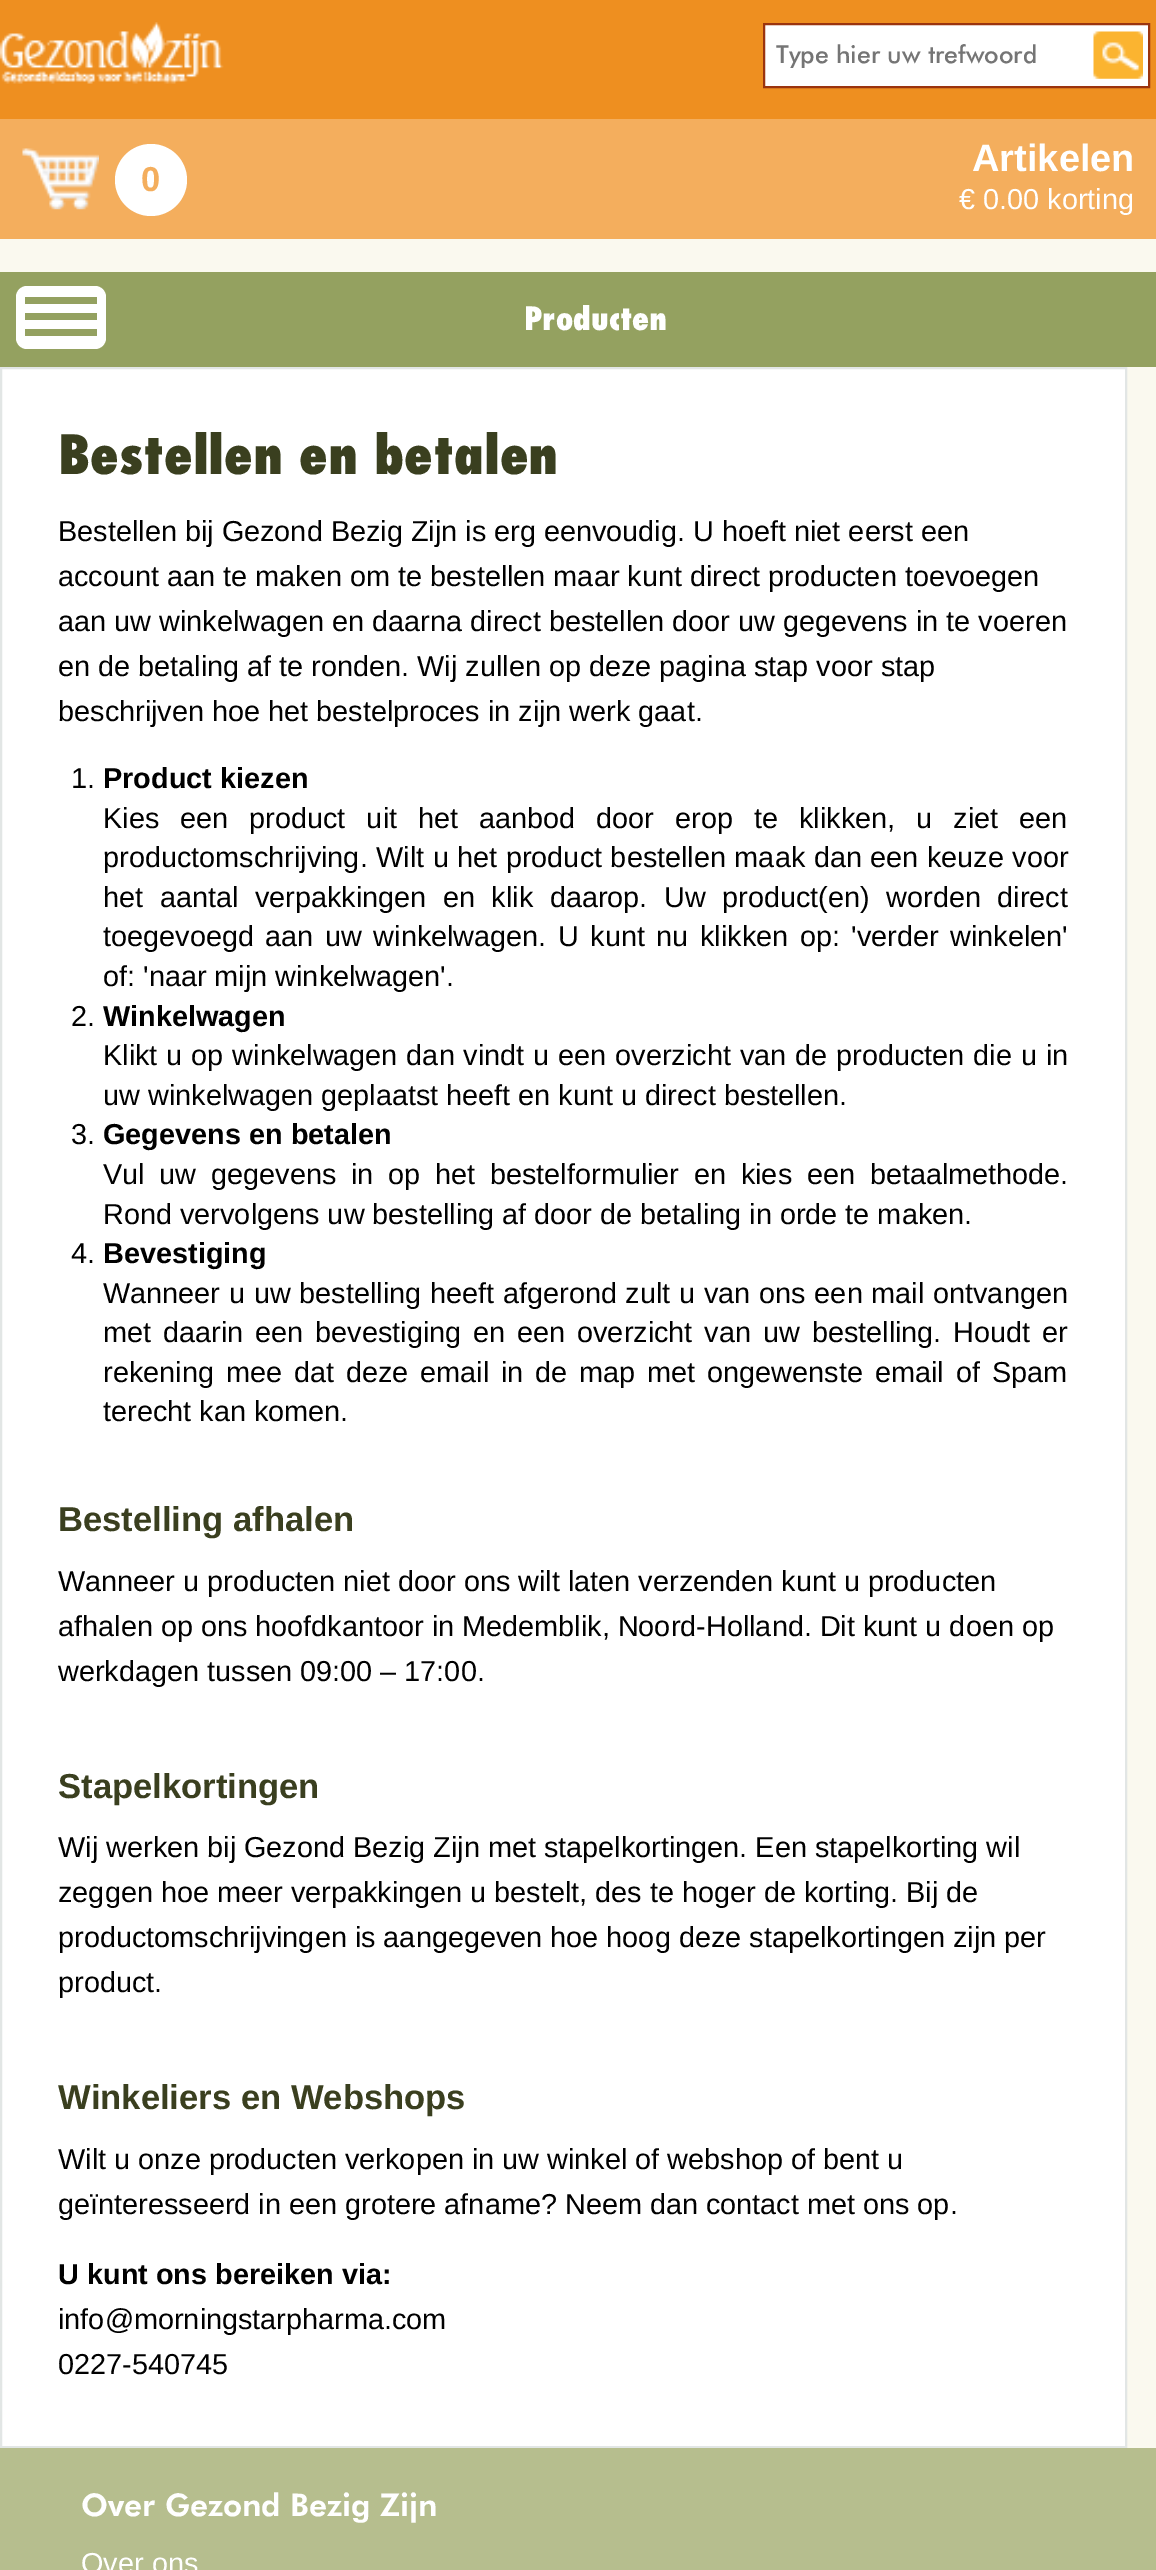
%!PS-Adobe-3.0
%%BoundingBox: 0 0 1156 2570
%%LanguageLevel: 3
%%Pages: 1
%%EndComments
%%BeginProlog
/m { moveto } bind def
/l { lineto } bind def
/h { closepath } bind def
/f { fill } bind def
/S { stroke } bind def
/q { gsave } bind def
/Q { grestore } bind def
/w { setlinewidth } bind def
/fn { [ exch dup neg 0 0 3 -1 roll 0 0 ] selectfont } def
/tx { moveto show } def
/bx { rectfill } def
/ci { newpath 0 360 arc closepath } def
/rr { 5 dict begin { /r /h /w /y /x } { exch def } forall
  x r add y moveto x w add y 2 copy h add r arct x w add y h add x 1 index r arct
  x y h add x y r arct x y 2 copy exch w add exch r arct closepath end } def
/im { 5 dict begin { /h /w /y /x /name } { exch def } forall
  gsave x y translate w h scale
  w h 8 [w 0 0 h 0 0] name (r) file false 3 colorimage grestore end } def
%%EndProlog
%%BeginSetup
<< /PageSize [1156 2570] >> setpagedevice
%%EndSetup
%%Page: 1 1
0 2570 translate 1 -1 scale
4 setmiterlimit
0.98 0.976 0.937 setrgbcolor
0 0 1156 2570 bx
0.933 0.561 0.125 setrgbcolor
0 0 1156 119 bx
(image0.raw) 0 22 224 62 im
1 setgray
764 24 m 1149 24 l 1149 87 l 764 87 l h q f Q
0.608 0.204 0.055 setrgbcolor
2 w
S
q
776 43 360 25 rectclip
/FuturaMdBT-Medium 24.75 fn
0.459 setgray
(Type hier uw trefwoord) 776 63 tx
Q
(image1.raw) 1093 31 50 48 im
0.957 0.682 0.365 setrgbcolor
0 119 1156 120 bx
(image2.raw) 22 148 77 62 im
1 setgray
151 180 36 ci f
/LiberationSans-Bold 34.6 fn
0.957 0.682 0.365 setrgbcolor
(0) 141 191 tx
/LiberationSans-Bold 38 fn
1 setgray
(Artikelen) 972 171 tx
/LiberationSans-Regular 28.85 fn
(€ 0.00 korting) 959 209 tx
0.58 0.631 0.376 setrgbcolor
0 272 1156 95 bx
1 setgray
16 286 90 63 11 rr f
0.58 0.631 0.376 setrgbcolor
25 297 72 7 bx
25 313 72 7 bx
25 329 72 7 bx
/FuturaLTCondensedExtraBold-ExtraBold 31.4 fn
1 setgray
(Producten) 524 330 tx
1 368 m 1126 368 l 1126 2447 l 1 2447 l h q f Q
0.886 0.902 0.898 setrgbcolor
S
/FuturaLTCondensedExtraBold-ExtraBold 52.75 fn
0.227 0.247 0.122 setrgbcolor
(Bestellen en betalen) 58 474 tx
/LiberationSans-Regular 28.85 fn
0 setgray
(Bestellen bij Gezond Bezig Zijn is erg eenvoudig. U hoeft niet eerst een) 58 541 tx
(account aan te maken om te bestellen maar kunt direct producten toevoegen) 58 586 tx
(aan uw winkelwagen en daarna direct bestellen door uw gegevens in te voeren) 58 631 tx
(en de betaling af te ronden. Wij zullen op deze pagina stap voor stap) 58 676 tx
(beschrijven hoe het bestelproces in zijn werk gaat.) 58 721 tx
(1.) 71 788 tx
/LiberationSans-Bold 28.85 fn
(Product kiezen) 103 788 tx
/LiberationSans-Regular 28.85 fn
103 828 m 13 0 32 (Kies een product uit het aanbod door erop te klikken, u ziet een) widthshow
103 867 m 0.5 0 32 (productomschrijving. Wilt u het product bestellen maak dan een keuze voor) widthshow
103 907 m 8.5 0 32 (het aantal verpakkingen en klik daarop. Uw product\(en\) worden direct) widthshow
103 946 m 3.5 0 32 (toegevoegd aan uw winkelwagen. U kunt nu klikken op: 'verder winkelen') widthshow
(of: 'naar mijn winkelwagen'.) 103 986 tx
(2.) 71 1026 tx
/LiberationSans-Bold 28.85 fn
(Winkelwagen) 103 1026 tx
/LiberationSans-Regular 28.85 fn
103 1065 m 0.9 0 32 (Klikt u op winkelwagen dan vindt u een overzicht van de producten die u in) widthshow
(uw winkelwagen geplaatst heeft en kunt u direct bestellen.) 103 1105 tx
(3.) 71 1144 tx
/LiberationSans-Bold 28.85 fn
(Gegevens en betalen) 103 1144 tx
/LiberationSans-Regular 28.85 fn
103 1184 m 6.75 0 32 (Vul uw gegevens in op het bestelformulier en kies een betaalmethode.) widthshow
(Rond vervolgens uw bestelling af door de betaling in orde te maken.) 103 1224 tx
(4.) 71 1263 tx
/LiberationSans-Bold 28.85 fn
(Bevestiging) 103 1263 tx
/LiberationSans-Regular 28.85 fn
103 1303 m 0.75 0 32 (Wanneer u uw bestelling heeft afgerond zult u van ons een mail ontvangen) widthshow
103 1342 m 3.9 0 32 (met daarin een bevestiging en een overzicht van uw bestelling. Houdt er) widthshow
103 1382 m 3.9 0 32 (rekening mee dat deze email in de map met ongewenste email of Spam) widthshow
(terecht kan komen.) 103 1421 tx
/LiberationSans-Bold 34.6 fn
0.227 0.247 0.122 setrgbcolor
(Bestelling afhalen) 58 1531 tx
/LiberationSans-Regular 28.85 fn
0 setgray
(Wanneer u producten niet door ons wilt laten verzenden kunt u producten) 58 1591 tx
(afhalen op ons hoofdkantoor in Medemblik, Noord-Holland. Dit kunt u doen op) 58 1636 tx
(werkdagen tussen 09:00 – 17:00.) 58 1681 tx
/LiberationSans-Bold 34.6 fn
0.227 0.247 0.122 setrgbcolor
(Stapelkortingen) 58 1798 tx
/LiberationSans-Regular 28.85 fn
0 setgray
(Wij werken bij Gezond Bezig Zijn met stapelkortingen. Een stapelkorting wil) 58 1857 tx
(zeggen hoe meer verpakkingen u bestelt, des te hoger de korting. Bij de) 58 1902 tx
(productomschrijvingen is aangegeven hoe hoog deze stapelkortingen zijn per) 58 1947 tx
(product.) 58 1992 tx
/LiberationSans-Bold 34.6 fn
0.227 0.247 0.122 setrgbcolor
(Winkeliers en Webshops) 58 2109 tx
/LiberationSans-Regular 28.85 fn
0 setgray
(Wilt u onze producten verkopen in uw winkel of webshop of bent u) 58 2169 tx
(geïnteresseerd in een grotere afname? Neem dan contact met ons op.) 58 2214 tx
/LiberationSans-Bold 28.85 fn
(U kunt ons bereiken via:) 58 2284 tx
/LiberationSans-Regular 28.85 fn
(info@morningstarpharma.com) 58 2329 tx
(0227-540745) 58 2374 tx
0.714 0.745 0.557 setrgbcolor
0 2448 1156 122 bx
/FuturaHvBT-Black 31.4 fn
1 setgray
(Over Gezond Bezig Zijn) 81 2516 tx
/LiberationSans-Regular 28.85 fn
(Over ons) 81 2573 tx
showpage
%%EOF
